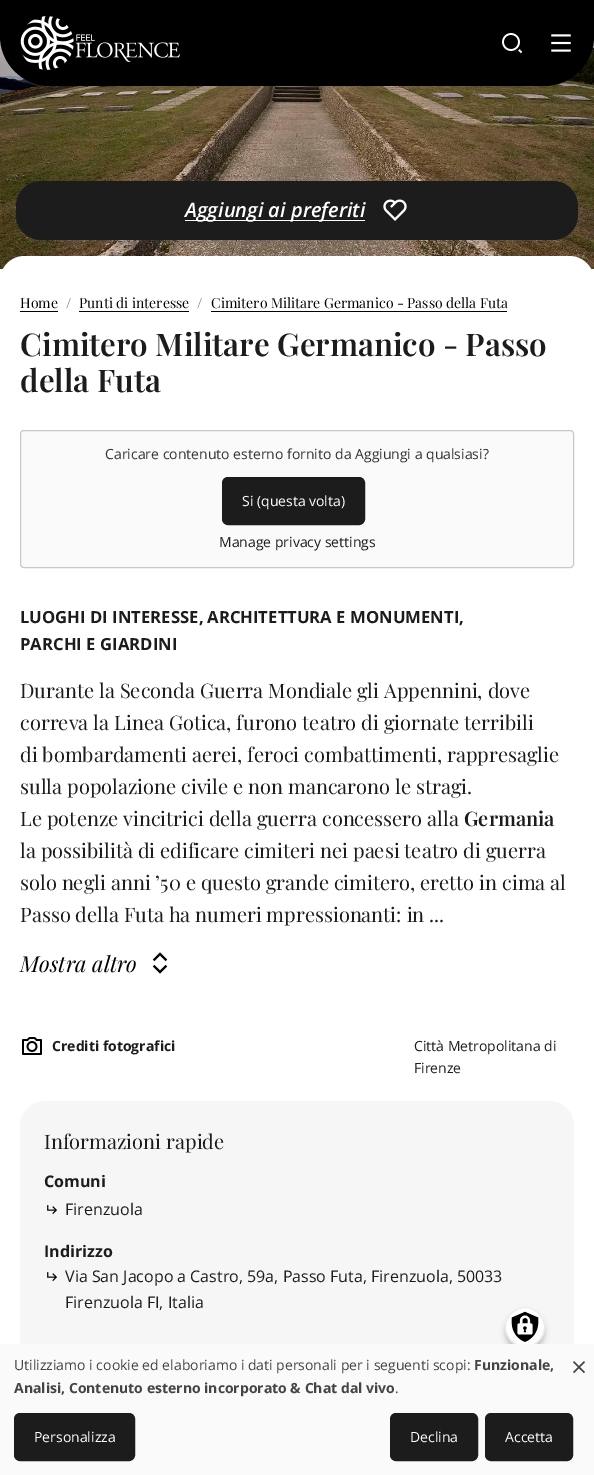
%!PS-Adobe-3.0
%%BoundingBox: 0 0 594 1475
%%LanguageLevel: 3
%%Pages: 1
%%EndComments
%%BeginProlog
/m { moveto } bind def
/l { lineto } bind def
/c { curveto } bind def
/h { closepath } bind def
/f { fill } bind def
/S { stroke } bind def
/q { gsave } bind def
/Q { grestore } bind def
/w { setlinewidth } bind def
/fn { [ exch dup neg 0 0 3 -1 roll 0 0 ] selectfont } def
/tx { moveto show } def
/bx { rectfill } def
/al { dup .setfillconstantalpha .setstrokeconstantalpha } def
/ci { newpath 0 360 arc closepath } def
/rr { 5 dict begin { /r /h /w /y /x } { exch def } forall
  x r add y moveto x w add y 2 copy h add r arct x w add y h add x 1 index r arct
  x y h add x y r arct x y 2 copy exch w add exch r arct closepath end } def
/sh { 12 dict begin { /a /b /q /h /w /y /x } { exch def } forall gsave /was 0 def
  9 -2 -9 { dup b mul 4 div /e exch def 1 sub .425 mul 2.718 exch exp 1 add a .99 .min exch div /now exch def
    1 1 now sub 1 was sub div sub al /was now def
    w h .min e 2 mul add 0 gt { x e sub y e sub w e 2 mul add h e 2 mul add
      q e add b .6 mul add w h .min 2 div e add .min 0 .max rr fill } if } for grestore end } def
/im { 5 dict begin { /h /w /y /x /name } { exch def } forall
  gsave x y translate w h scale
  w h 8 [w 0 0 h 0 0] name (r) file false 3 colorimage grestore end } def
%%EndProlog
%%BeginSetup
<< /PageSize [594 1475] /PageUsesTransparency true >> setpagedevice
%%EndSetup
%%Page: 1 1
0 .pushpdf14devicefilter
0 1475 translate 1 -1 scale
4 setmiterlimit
1 setgray
0 0 594 1475 bx
(image3.raw) 0 36 594 233 im
0 setgray
0 0 m 594 0 l 594 36 l 594 63.5 571.5 86 544 86 c 50 86 l 22.5 86 0 63.5 0 36 c h f
(image0.raw) 20 16 160 54 im
(image1.raw) 502 33 21 21 im
(image2.raw) 551 34 20 18 im
0.388 setgray
16 184 562 59 25 2.5 0.2 sh
0.11 setgray
16 181 562 59 25 rr f
1 setgray
185 220 180 1 bx
/OpenSans-SemiBoldItalic 20 fn
(Aggiungi ai preferiti) 185 217 tx
(image4.raw) 383 199 24 22 im
25 256 m 569 256 l 583 256 594 267 594 281 c 594 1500 l 0 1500 l 0 281 l 0 267 11 256 25 256 c h f
/PlayfairDisplay-Regular 14 fn
0 setgray
(Home) 20 308 tx
20 311 38 1 bx
0.333 setgray
(/) 66 308 tx
0 setgray
(Punti di interesse) 79 308 tx
79 311 110 1 bx
0.333 setgray
(/) 197 308 tx
0 setgray
(Cimitero Militare Germanico - Passo della Futa) 211 308 tx
211 311 296 1 bx
/PlayfairDisplay-SemiBold 31.25 fn
0.11 setgray
(Cimitero Militare Germanico - Passo) 20 356 tx
(della Futa) 20 392 tx
0.98 setgray
20.5 430.5 553 137 3.5 rr q f Q
0.784 setgray
S
/OpenSans-Regular 14 fn
0.2 setgray
(Caricare contenuto esterno fornito da Aggiungi a qualsiasi?) 105 459 tx
0.11 setgray
223.5 478.5 140 45 4.5 rr q f Q
3 w
S
1 setgray
(Si \(questa volta\)) 242 506 tx
0.11 setgray
(Manage privacy settings) 219 547 tx
/OpenSans-Bold 16.7 fn
(LUOGHI DI INTERESSE,) 20 623 tx
(ARCHITETTURA E MONUMENTI,) 207 623 tx
(PARCHI E GIARDINI) 20 650 tx
/PlayfairDisplay-Regular 20 fn
(Durante la Seconda Guerra Mondiale gli Appennini, dove) 20 698 tx
(correva la Linea Gotica, furono teatro di giornate terribili) 20 730 tx
(di bombardamenti aerei, feroci combattimenti, rappresaglie) 20 762 tx
(sulla popolazione civile e non mancarono le stragi.) 20 794 tx
(Le potenze vincitrici della guerra concessero alla) 20 826 tx
/PlayfairDisplay-SemiBold 20 fn
(Germania) 464 826 tx
/PlayfairDisplay-Regular 20 fn
(la possibilità di edificare cimiteri nei paesi teatro di guerra) 20 858 tx
(solo negli anni ’50 e questo grande cimitero, eretto in cima al) 20 890 tx
(Passo della Futa ha numeri mpressionanti: in ...) 20 922 tx
/PlayfairDisplay-Italic 22 fn
0 setgray
(Mostra altro) 20 972 tx
(image5.raw) 152 952 16 22 im
(image6.raw) 22 1037 20 18 im
/OpenSans-Bold 14 fn
0.11 setgray
(Crediti fotografici) 52 1051 tx
/OpenSans-Regular 14 fn
(Città Metropolitana di) 414 1051 tx
(Firenze) 414 1073 tx
0.965 setgray
20 1101 554 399 25 rr f
/PlayfairDisplay-Regular 20 fn
0.11 setgray
(Informazioni rapide) 44 1149 tx
/OpenSans-Bold 16 fn
(Comuni) 44 1187 tx
(image7.raw) 47 1205 10 9 im
/OpenSans-Regular 16 fn
(Firenzuola) 65 1215 tx
/OpenSans-Bold 16 fn
(Indirizzo) 44 1257 tx
(image7.raw) 47 1272 10 9 im
/OpenSans-Regular 16 fn
(Via San Jacopo a Castro, 59a, Passo Futa, Firenzuola, 50033) 65 1282 tx
(Firenzuola FI, Italia) 65 1308 tx
0 setgray
505 1312 40 40 20 2.5 0.2 sh
1 setgray
525 1327 20 ci f
(image8.raw) 511 1311 28 31 im
0.918 setgray
1 w
525 1327 19.5 ci S
0.98 setgray
0 1344 594 131 bx
/OpenSans-Regular 14 fn
0.267 setgray
(Utilizziamo i cookie ed elaboriamo i dati personali per i seguenti scopi:) 14 1370 tx
/OpenSans-Bold 14 fn
(Funzionale,) 474 1370 tx
(Analisi, Contenuto esterno incorporato & Chat dal vivo) 14 1393 tx
/OpenSans-Regular 14 fn
(.) 395 1393 tx
0.11 setgray
15.5 1414.5 118 45 4.5 rr q f Q
3 w
S
1 setgray
(Personalizza) 34 1442 tx
0.11 setgray
391.5 1414.5 85 45 4.5 rr q f Q
S
1 setgray
(Declina) 410 1442 tx
0.11 setgray
486.5 1414.5 85 45 4.5 rr q f Q
S
1 setgray
(Accetta) 505 1442 tx
/OpenSans-Regular 28 fn
0.267 setgray
(×) 571 1377 tx
.poppdf14devicefilter showpage
%%EOF
